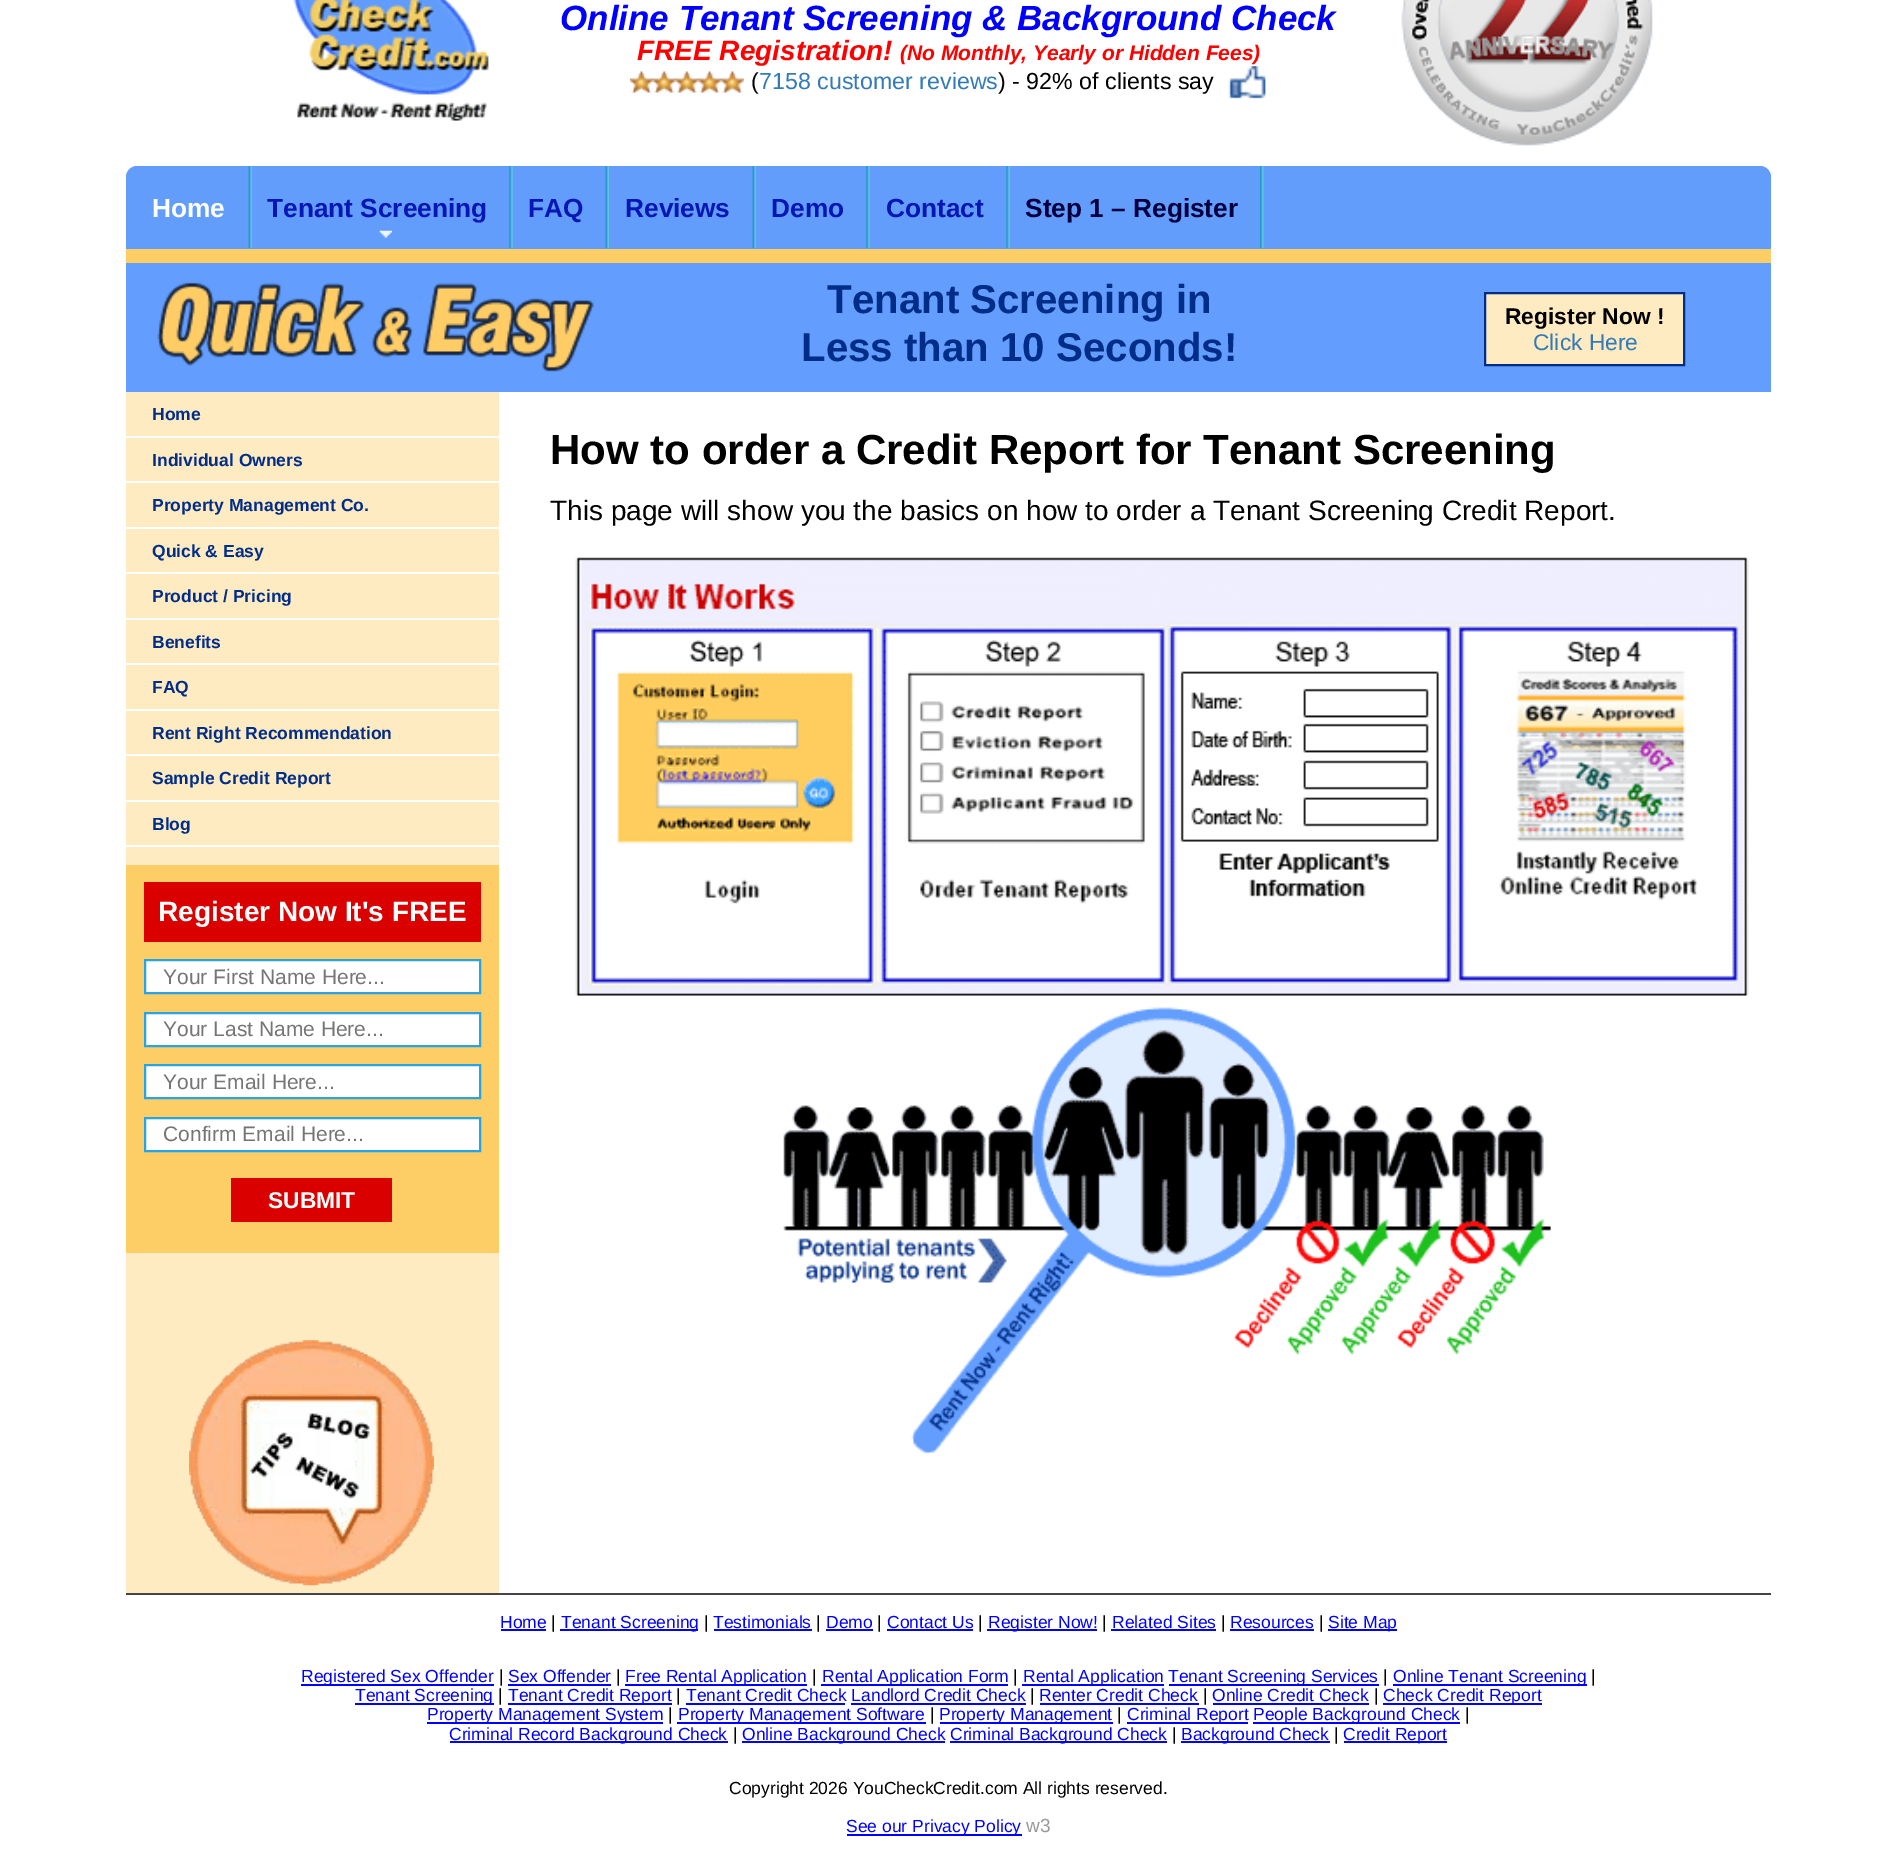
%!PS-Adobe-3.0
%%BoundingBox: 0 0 1897 1853
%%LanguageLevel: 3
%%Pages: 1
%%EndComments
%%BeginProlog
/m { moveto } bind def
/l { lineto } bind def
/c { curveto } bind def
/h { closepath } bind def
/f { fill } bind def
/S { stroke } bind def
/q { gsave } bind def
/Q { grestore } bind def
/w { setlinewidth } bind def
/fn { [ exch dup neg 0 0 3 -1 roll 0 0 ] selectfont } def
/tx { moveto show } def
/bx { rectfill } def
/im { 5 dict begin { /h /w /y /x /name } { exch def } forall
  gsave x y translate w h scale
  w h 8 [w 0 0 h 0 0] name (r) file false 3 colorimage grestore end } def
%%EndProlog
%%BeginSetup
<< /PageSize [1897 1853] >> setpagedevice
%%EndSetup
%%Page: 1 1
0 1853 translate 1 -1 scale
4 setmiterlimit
1 setgray
0 0 1897 1853 bx
(image0.raw) 293 0 196 121 im
/LiberationSans-BoldItalic 35 fn
0 0 1 setrgbcolor
(Online Tenant Screening & Background Check) 560 30 tx
/LiberationSans-BoldItalic 28 fn
1 0 0 setrgbcolor
(FREE Registration!) 637 60 tx
/LiberationSans-BoldItalic 21 fn
(\(No Monthly, Yearly or Hidden Fees\)) 900 60 tx
(image1.raw) 630 71 114 22 im
/LiberationSans-Regular 23.25 fn
0 setgray
(\() 751 89 tx
0.2 0.478 0.718 setrgbcolor
(7158 customer reviews) 759 89 tx
0 setgray
(\) - 92% of clients say) 998 89 tx
(image2.raw) 1228 66 38 33 im
(image3.raw) 1401 0 252 146 im
0.384 0.616 0.988 setrgbcolor
137 166 m 1760 166 l 1766 166 1771 171 1771 177 c 1771 249 l 126 249 l 126 177 l 126 171 131 166 137 166 c h f
(image4.raw) 248 166 4 83 im
/LiberationSans-Bold 26.25 fn
1 setgray
(Home) 152 217 tx
(image5.raw) 509 166 4 83 im
0.031 0.09 0.702 setrgbcolor
(Tenant Screening) 267 217 tx
(image6.raw) 379 230 13 8 im
(image4.raw) 605 166 4 83 im
(FAQ) 528 217 tx
(image4.raw) 752 166 4 83 im
(Reviews) 625 217 tx
(image5.raw) 866 166 4 83 im
(Demo) 771 217 tx
(image5.raw) 1006 166 4 83 im
(Contact) 886 217 tx
(image7.raw) 1260 166 4 83 im
0 0 0.251 setrgbcolor
(Step 1 – Register) 1025 217 tx
0.992 0.808 0.4 setrgbcolor
126 249 1645 14 bx
0.388 0.62 1 setrgbcolor
126 263 1645 129 bx
(image8.raw) 157 282 437 90 im
/LiberationSans-Bold 40.25 fn
0 0.176 0.533 setrgbcolor
(Tenant Screening in) 827 313 tx
(Less than 10 Seconds!) 801 361 tx
1 0.922 0.757 setrgbcolor
1485 293 m 1684 293 l 1684 365 l 1485 365 l h q f Q
0 0.176 0.533 setrgbcolor
2 w
S
/LiberationSans-Bold 22.75 fn
0 setgray
(Register Now !) 1505 324 tx
/LiberationSans-Regular 22.75 fn
0.2 0.478 0.718 setrgbcolor
(Click Here) 1533 350 tx
1 0.922 0.757 setrgbcolor
126 392 373 1201 bx
1 setgray
126 436 373 2 bx
/LiberationSans-Bold 17.5 fn
0 0.176 0.533 setrgbcolor
(Home) 152 420 tx
1 setgray
126 481 373 2 bx
0 0.176 0.533 setrgbcolor
(Individual Owners) 152 466 tx
1 setgray
126 527 373 2 bx
0 0.176 0.533 setrgbcolor
(Property Management Co.) 152 511 tx
1 setgray
126 572 373 2 bx
0 0.176 0.533 setrgbcolor
(Quick & Easy) 152 557 tx
1 setgray
126 618 373 2 bx
0 0.176 0.533 setrgbcolor
(Product / Pricing) 152 602 tx
1 setgray
126 663 373 2 bx
0 0.176 0.533 setrgbcolor
(Benefits) 152 648 tx
1 setgray
126 709 373 2 bx
0 0.176 0.533 setrgbcolor
(FAQ) 152 693 tx
1 setgray
126 754 373 2 bx
0 0.176 0.533 setrgbcolor
(Rent Right Recommendation) 152 739 tx
1 setgray
126 800 373 2 bx
0 0.176 0.533 setrgbcolor
(Sample Credit Report) 152 784 tx
1 setgray
126 845 373 2 bx
0 0.176 0.533 setrgbcolor
(Blog) 152 830 tx
0.992 0.808 0.4 setrgbcolor
126 865 373 388 bx
0.859 0 0 setrgbcolor
144 882 337 60 bx
/LiberationSans-Bold 28 fn
1 setgray
(Register Now It's FREE) 158 921 tx
145 960 m 480 960 l 480 993 l 145 993 l h q f Q
0.157 0.643 0.886 setrgbcolor
S
/LiberationSans-Regular 21 fn
0.459 setgray
(Your First Name Here...) 163 984 tx
1 setgray
145 1013 m 480 1013 l 480 1046 l 145 1046 l h q f Q
0.157 0.643 0.886 setrgbcolor
S
0.459 setgray
(Your Last Name Here...) 163 1036 tx
1 setgray
145 1065 m 480 1065 l 480 1098 l 145 1098 l h q f Q
0.157 0.643 0.886 setrgbcolor
S
0.459 setgray
(Your Email Here...) 163 1089 tx
1 setgray
145 1118 m 480 1118 l 480 1151 l 145 1151 l h q f Q
0.157 0.643 0.886 setrgbcolor
S
0.459 setgray
(Confirm Email Here...) 163 1141 tx
0.859 0 0 setrgbcolor
231 1178 161 44 bx
/LiberationSans-Bold 22.75 fn
1 setgray
(SUBMIT) 268 1208 tx
(image9.raw) 189 1340 245 246 im
/LiberationSans-Bold 42 fn
0 setgray
(How to order a Credit Report for Tenant Screening) 550 464 tx
/LiberationSans-Regular 28 fn
(This page will show you the basics on how to order a Tenant Screening Credit Report.) 550 520 tx
(image10.raw) 575 557 1174 439 im
(image11.raw) 783 1007 768 448 im
0.267 setgray
126 1593 1645 2 bx
/LiberationSans-Regular 17.5 fn
0 0 1 setrgbcolor
(Home) 500 1628 tx
501 1629 45 2 bx
0 setgray
(|) 551 1628 tx
0 0 1 setrgbcolor
560 1629 138 2 bx
(Tenant Screening) 561 1628 tx
0 setgray
(|) 704 1628 tx
0 0 1 setrgbcolor
(Testimonials) 713 1628 tx
714 1629 98 2 bx
0 setgray
(|) 816 1628 tx
0 0 1 setrgbcolor
(Demo) 826 1628 tx
826 1629 47 2 bx
0 setgray
(|) 877 1628 tx
0 0 1 setrgbcolor
(Contact Us) 887 1628 tx
887 1629 86 2 bx
0 setgray
(|) 978 1628 tx
0 0 1 setrgbcolor
987 1629 110 2 bx
(Register Now!) 988 1628 tx
0 setgray
(|) 1102 1628 tx
0 0 1 setrgbcolor
(Related Sites) 1112 1628 tx
1111 1629 105 2 bx
0 setgray
(|) 1221 1628 tx
0 0 1 setrgbcolor
(Resources) 1230 1628 tx
1230 1629 84 2 bx
0 setgray
(|) 1319 1628 tx
0 0 1 setrgbcolor
1328 1629 69 2 bx
(Site Map) 1328 1628 tx
301 1684 193 2 bx
(Registered Sex Offender) 301 1682 tx
0 setgray
(|) 499 1682 tx
0 0 1 setrgbcolor
(Sex Offender) 508 1682 tx
508 1684 103 2 bx
0 setgray
(|) 616 1682 tx
0 0 1 setrgbcolor
625 1684 182 2 bx
(Free Rental Application) 625 1682 tx
0 setgray
(|) 812 1682 tx
0 0 1 setrgbcolor
821 1684 187 2 bx
(Rental Application Form) 822 1682 tx
0 setgray
(|) 1013 1682 tx
0 0 1 setrgbcolor
1022 1684 142 2 bx
(Rental Application) 1023 1682 tx
1169 1684 210 2 bx
(Tenant Screening Services) 1168 1682 tx
0 setgray
(|) 1383 1682 tx
0 0 1 setrgbcolor
1393 1684 194 2 bx
(Online Tenant Screening) 1393 1682 tx
0 setgray
(|) 1591 1682 tx
0 0 1 setrgbcolor
355 1703 139 2 bx
(Tenant Screening) 355 1701 tx
0 setgray
(|) 498 1701 tx
0 0 1 setrgbcolor
508 1703 164 2 bx
(Tenant Credit Report) 508 1701 tx
0 setgray
(|) 676 1701 tx
0 0 1 setrgbcolor
(Tenant Credit Check Landlord Credit Check) 686 1701 tx
686 1703 159 2 bx
0 setgray
(|) 1030 1701 tx
0 0 1 setrgbcolor
(Renter Credit Check) 1039 1701 tx
1040 1703 159 2 bx
0 setgray
(|) 1203 1701 tx
0 0 1 setrgbcolor
(Online Credit Check) 1212 1701 tx
1213 1703 156 2 bx
0 setgray
(|) 1374 1701 tx
0 0 1 setrgbcolor
1383 1703 159 2 bx
(Check Credit Report) 1383 1701 tx
851 1703 175 2 bx
427 1722 236 2 bx
(Property Management System) 427 1720 tx
0 setgray
(|) 668 1720 tx
0 0 1 setrgbcolor
677 1722 249 2 bx
(Property Management Software) 678 1720 tx
0 setgray
(|) 930 1720 tx
0 0 1 setrgbcolor
940 1722 173 2 bx
(Property Management) 939 1720 tx
0 setgray
(|) 1117 1720 tx
0 0 1 setrgbcolor
1127 1722 121 2 bx
(Criminal Report) 1127 1720 tx
1253 1722 207 2 bx
(People Background Check) 1253 1720 tx
0 setgray
(|) 1465 1720 tx
0 0 1 setrgbcolor
450 1741 278 2 bx
(Criminal Record Background Check) 449 1740 tx
0 setgray
(|) 733 1740 tx
0 0 1 setrgbcolor
742 1741 203 2 bx
(Online Background Check) 742 1740 tx
950 1741 217 2 bx
(Criminal Background Check) 950 1740 tx
0 setgray
(|) 1172 1740 tx
0 0 1 setrgbcolor
1181 1741 149 2 bx
(Background Check) 1181 1740 tx
0 setgray
(|) 1334 1740 tx
0 0 1 setrgbcolor
1344 1741 103 2 bx
(Credit Report) 1343 1740 tx
0 setgray
(Copyright 2026 YouCheckCredit.com All rights reserved.) 729 1794 tx
0 0 1 setrgbcolor
847 1834 175 2 bx
(See our Privacy Policy) 846 1832 tx
/LiberationSans-Regular 19 fn
0.6 setgray
(w3) 1026 1832 tx
showpage
%%EOF
